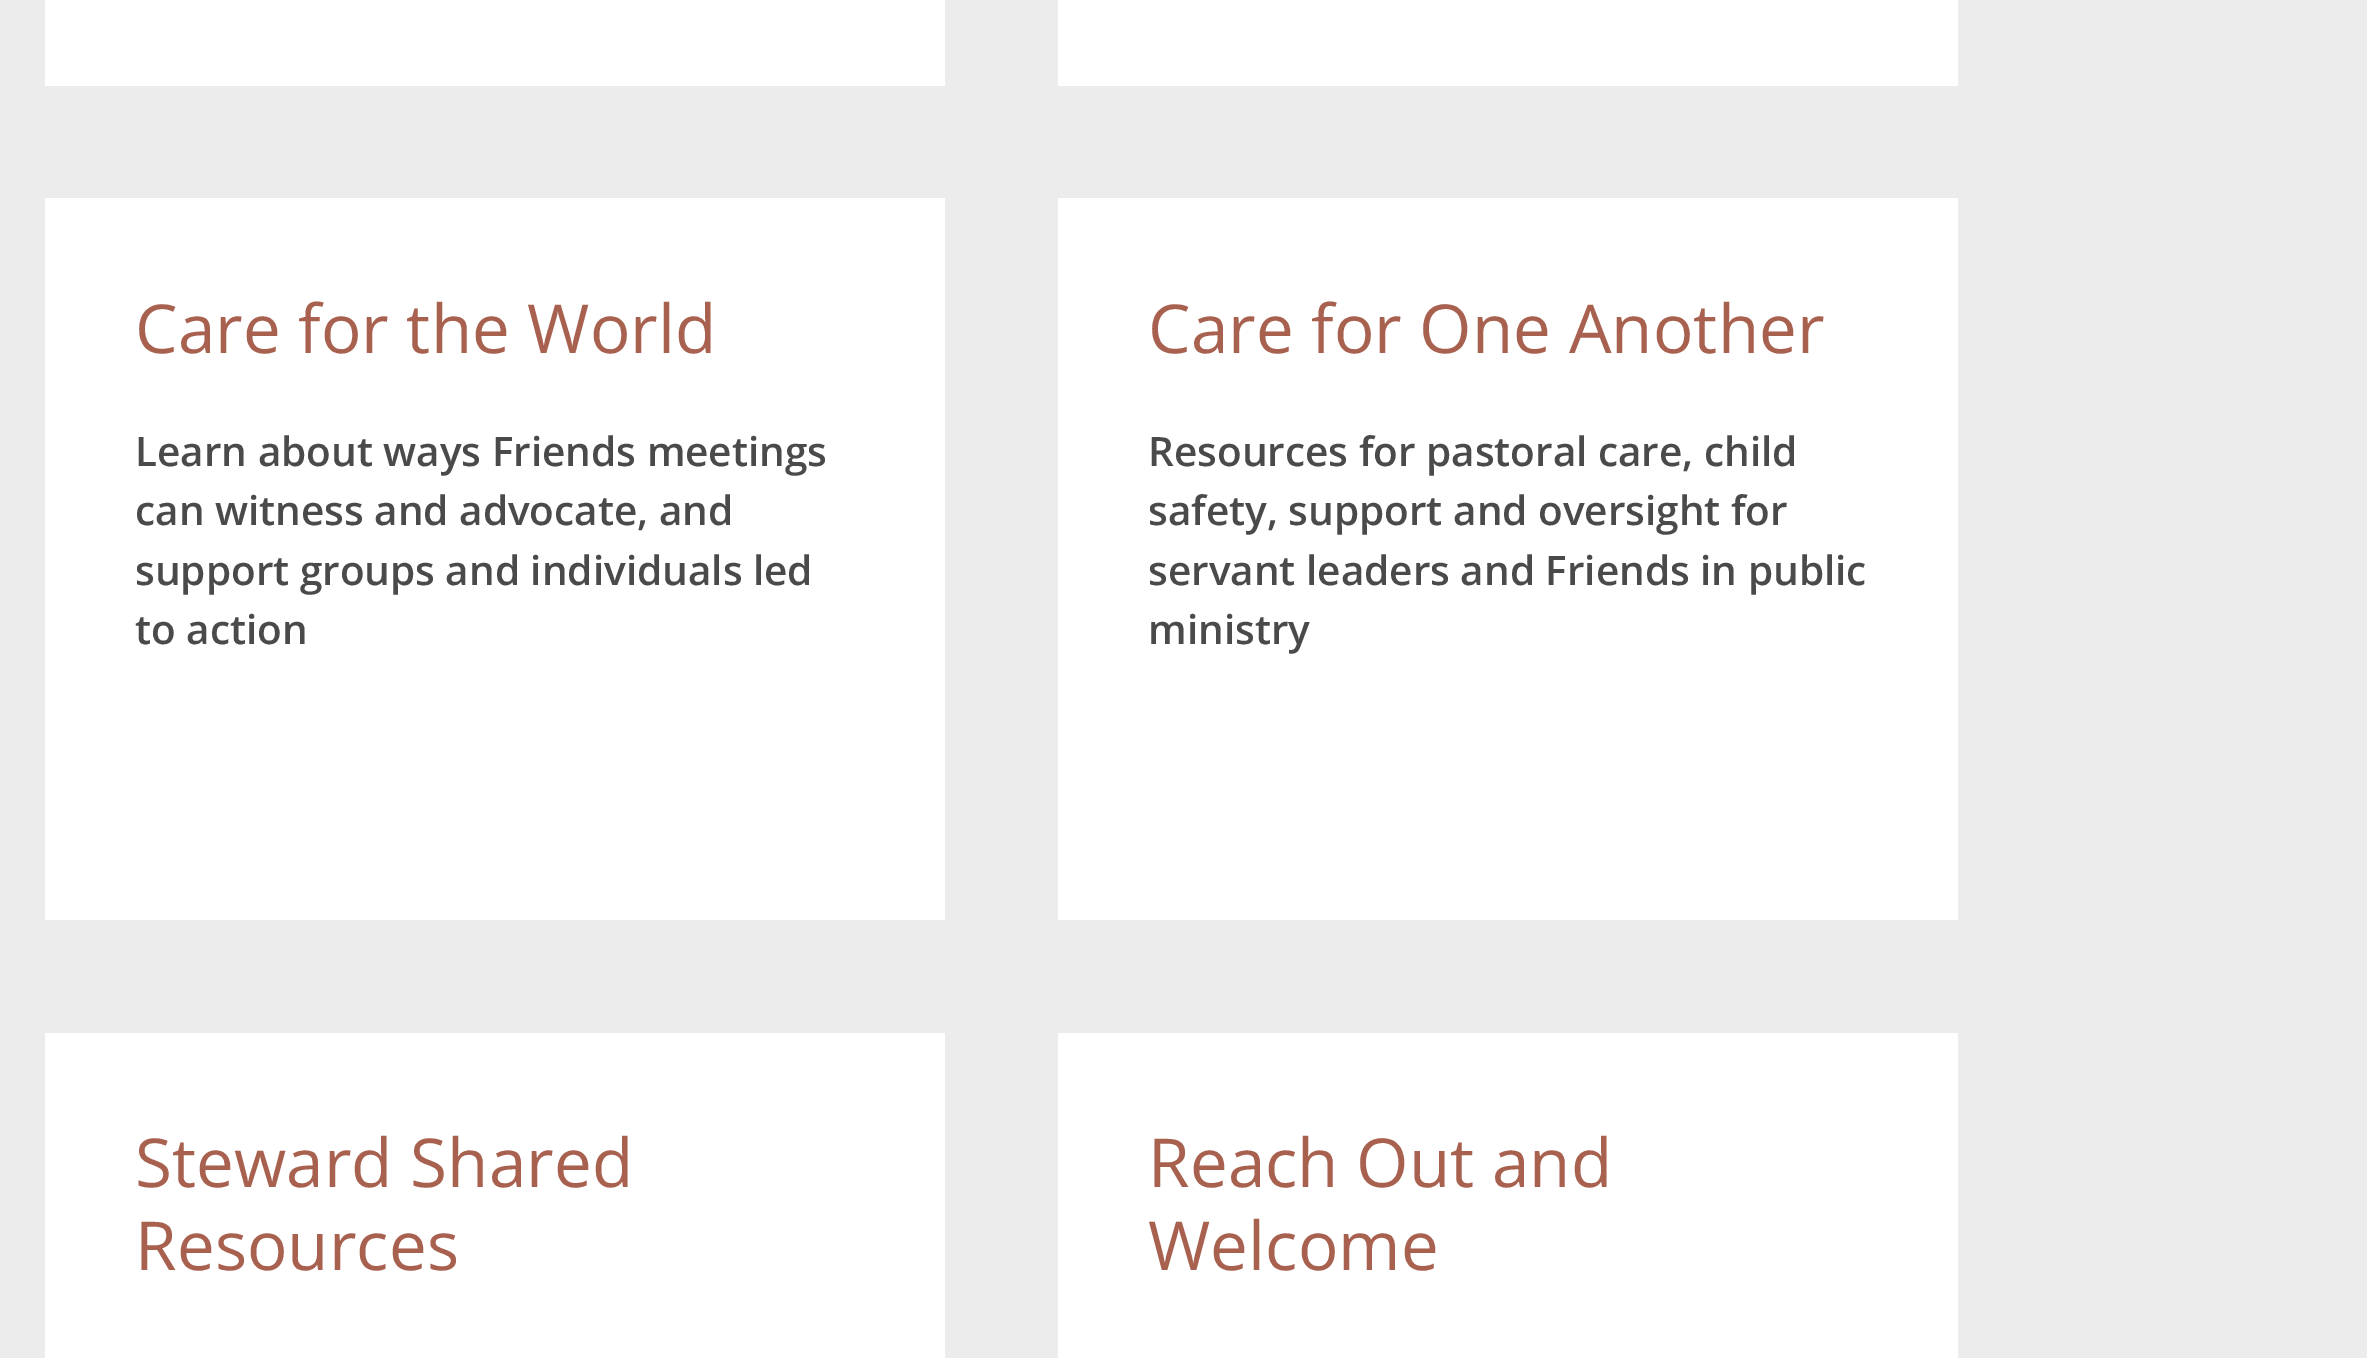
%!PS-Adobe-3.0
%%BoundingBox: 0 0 2367 1358
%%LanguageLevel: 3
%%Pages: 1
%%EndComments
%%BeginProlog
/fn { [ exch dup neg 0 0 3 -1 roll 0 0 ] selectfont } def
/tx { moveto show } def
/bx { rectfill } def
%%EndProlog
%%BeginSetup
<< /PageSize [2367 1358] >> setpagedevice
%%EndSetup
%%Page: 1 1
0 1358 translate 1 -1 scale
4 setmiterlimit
0.925 setgray
0 0 2367 1358 bx
1 setgray
45 0 900 86 bx
1058 0 900 86 bx
45 198 900 722 bx
/OpenSans-Regular 67.5 fn
0.659 0.38 0.306 setrgbcolor
(Care for the World) 135 353 tx
/OpenSans-SemiBold 40.5 fn
0.29 setgray
(Learn about ways Friends meetings) 135 466 tx
(can witness and advocate, and) 135 525 tx
(support groups and individuals led) 135 585 tx
(to action) 135 644 tx
1 setgray
1058 198 900 722 bx
/OpenSans-Regular 67.5 fn
0.659 0.38 0.306 setrgbcolor
(Care for One Another) 1148 353 tx
/OpenSans-SemiBold 40.5 fn
0.29 setgray
(Resources for pastoral care, child) 1148 466 tx
(safety, support and oversight for) 1148 525 tx
(servant leaders and Friends in public) 1148 585 tx
(ministry) 1148 644 tx
1 setgray
45 1033 900 325 bx
/OpenSans-Regular 67.5 fn
0.659 0.38 0.306 setrgbcolor
(Steward Shared) 135 1187 tx
(Resources) 135 1270 tx
1 setgray
1058 1033 900 325 bx
0.659 0.38 0.306 setrgbcolor
(Reach Out and) 1148 1187 tx
(Welcome) 1148 1270 tx
showpage
%%EOF
